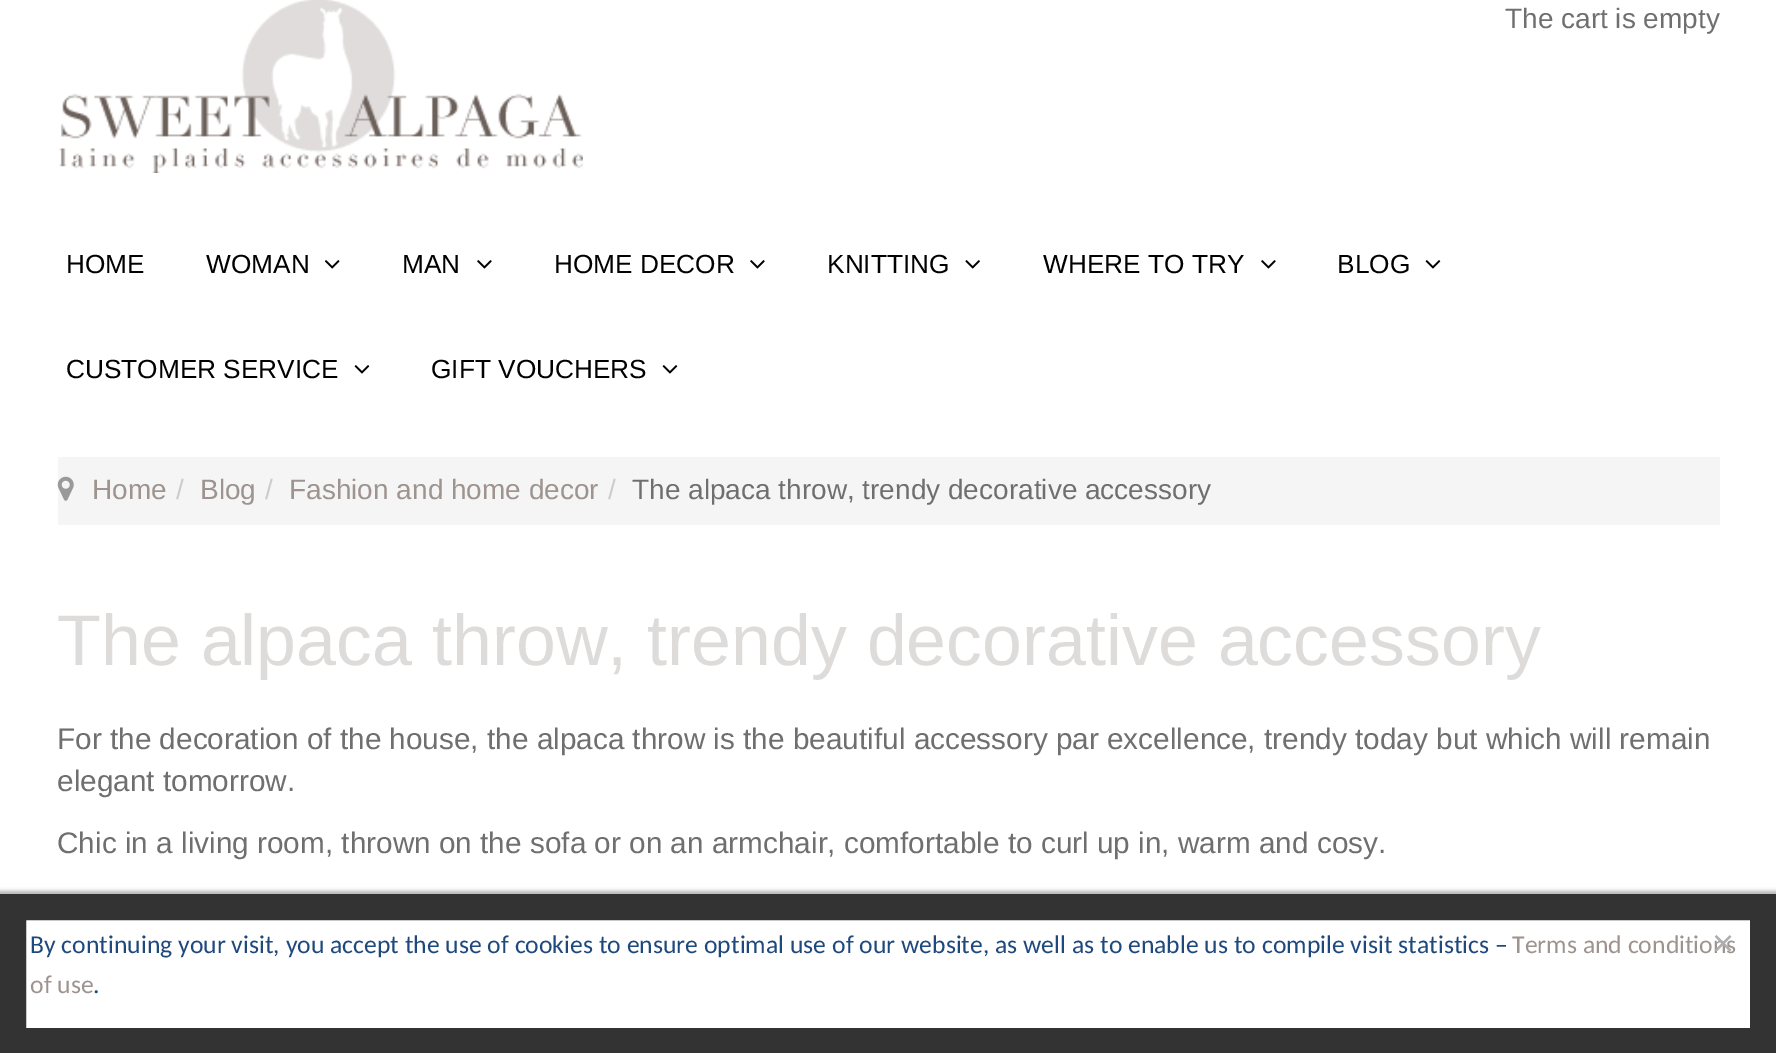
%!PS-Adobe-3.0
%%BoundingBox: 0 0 1776 1053
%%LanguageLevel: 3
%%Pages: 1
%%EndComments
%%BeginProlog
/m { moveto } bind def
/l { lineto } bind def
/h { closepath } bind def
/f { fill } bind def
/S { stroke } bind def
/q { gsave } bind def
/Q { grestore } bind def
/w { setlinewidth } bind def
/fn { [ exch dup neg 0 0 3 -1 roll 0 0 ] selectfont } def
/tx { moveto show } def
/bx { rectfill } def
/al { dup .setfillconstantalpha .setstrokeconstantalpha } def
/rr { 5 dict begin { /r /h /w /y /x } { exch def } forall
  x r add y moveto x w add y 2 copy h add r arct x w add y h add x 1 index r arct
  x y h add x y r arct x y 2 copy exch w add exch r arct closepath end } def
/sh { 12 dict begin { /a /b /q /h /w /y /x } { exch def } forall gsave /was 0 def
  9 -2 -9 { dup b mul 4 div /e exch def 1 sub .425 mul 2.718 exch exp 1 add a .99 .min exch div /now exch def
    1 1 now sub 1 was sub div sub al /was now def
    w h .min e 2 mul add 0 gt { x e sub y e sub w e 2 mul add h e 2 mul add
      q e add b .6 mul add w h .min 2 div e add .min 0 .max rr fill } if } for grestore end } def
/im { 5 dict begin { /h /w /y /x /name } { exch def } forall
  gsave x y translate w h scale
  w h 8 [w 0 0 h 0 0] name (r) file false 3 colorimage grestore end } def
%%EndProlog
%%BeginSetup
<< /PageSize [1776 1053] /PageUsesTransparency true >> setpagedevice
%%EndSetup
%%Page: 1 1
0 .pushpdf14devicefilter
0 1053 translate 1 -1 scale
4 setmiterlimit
1 setgray
0 0 1776 1053 bx
(image0.raw) 59 0 524 173 im
/LiberationSans-Regular 28 fn
0.435 setgray
(The cart is empty) 1505 28 tx
/LiberationSans-Regular 26.25 fn
0 setgray
(HOME) 66 273 tx
(WOMAN) 206 273 tx
(image1.raw) 324 260 16 9 im
(MAN) 402 273 tx
(image2.raw) 477 260 15 9 im
(HOME DECOR) 554 273 tx
(image2.raw) 750 260 15 9 im
(KNITTING) 827 273 tx
(image3.raw) 965 260 15 9 im
(WHERE TO TRY) 1043 273 tx
(image2.raw) 1261 260 15 9 im
(BLOG) 1337 273 tx
(image4.raw) 1425 260 16 9 im
(CUSTOMER SERVICE) 66 378 tx
(image4.raw) 354 365 16 9 im
(GIFT VOUCHERS) 431 378 tx
(image4.raw) 662 365 16 9 im
0.961 setgray
58 457 1662 68 bx
(image5.raw) 57 476 17 25 im
/LiberationSans-Regular 28 fn
0.616 0.576 0.561 setrgbcolor
(Home) 92 499 tx
0.8 setgray
(/) 176 499 tx
0.616 0.576 0.561 setrgbcolor
(Blog) 200 499 tx
0.8 setgray
(/) 265 499 tx
0.616 0.576 0.561 setrgbcolor
(Fashion and home decor) 289 499 tx
0.8 setgray
(/) 608 499 tx
0.435 setgray
(The alpaca throw, trendy decorative accessory) 632 499 tx
/LiberationSans-Regular 71.75 fn
0.871 0.863 0.855 setrgbcolor
(The alpaca throw, trendy decorative accessory) 57 665 tx
/LiberationSans-Regular 29.75 fn
0.435 setgray
(For the decoration of the house, the alpaca throw is the beautiful accessory par excellence, trendy today but which will remain) 57 749 tx
(elegant tomorrow.) 57 791 tx
(Chic in a living room, thrown on the sofa or on an armchair, comfortable to curl up in, warm and cosy.) 57 853 tx
0 0 0.004 setrgbcolor
-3 891 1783 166 0 2 0.3 sh
1 setgray
13 907 m 1763 907 l 1763 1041 l 13 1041 l h q f Q
0.2 setgray
26 w
S
/Carlito-Regular 25.67 fn
0.616 0.576 0.561 setrgbcolor
(Terms and conditions) 1512 953 tx
/LiberationSans-Regular 38 fn
0.682 setgray
(×) 1712 956 tx
/Carlito-Regular 25.67 fn
0.122 0.286 0.49 setrgbcolor
(By continuing your visit, you accept the use of cookies to ensure optimal use of our website, as well as to enable us to compile visit statistics –) 30 953 tx
0.616 0.576 0.561 setrgbcolor
(of use) 30 993 tx
0.122 0.286 0.49 setrgbcolor
(.) 93 993 tx
.poppdf14devicefilter showpage
%%EOF
